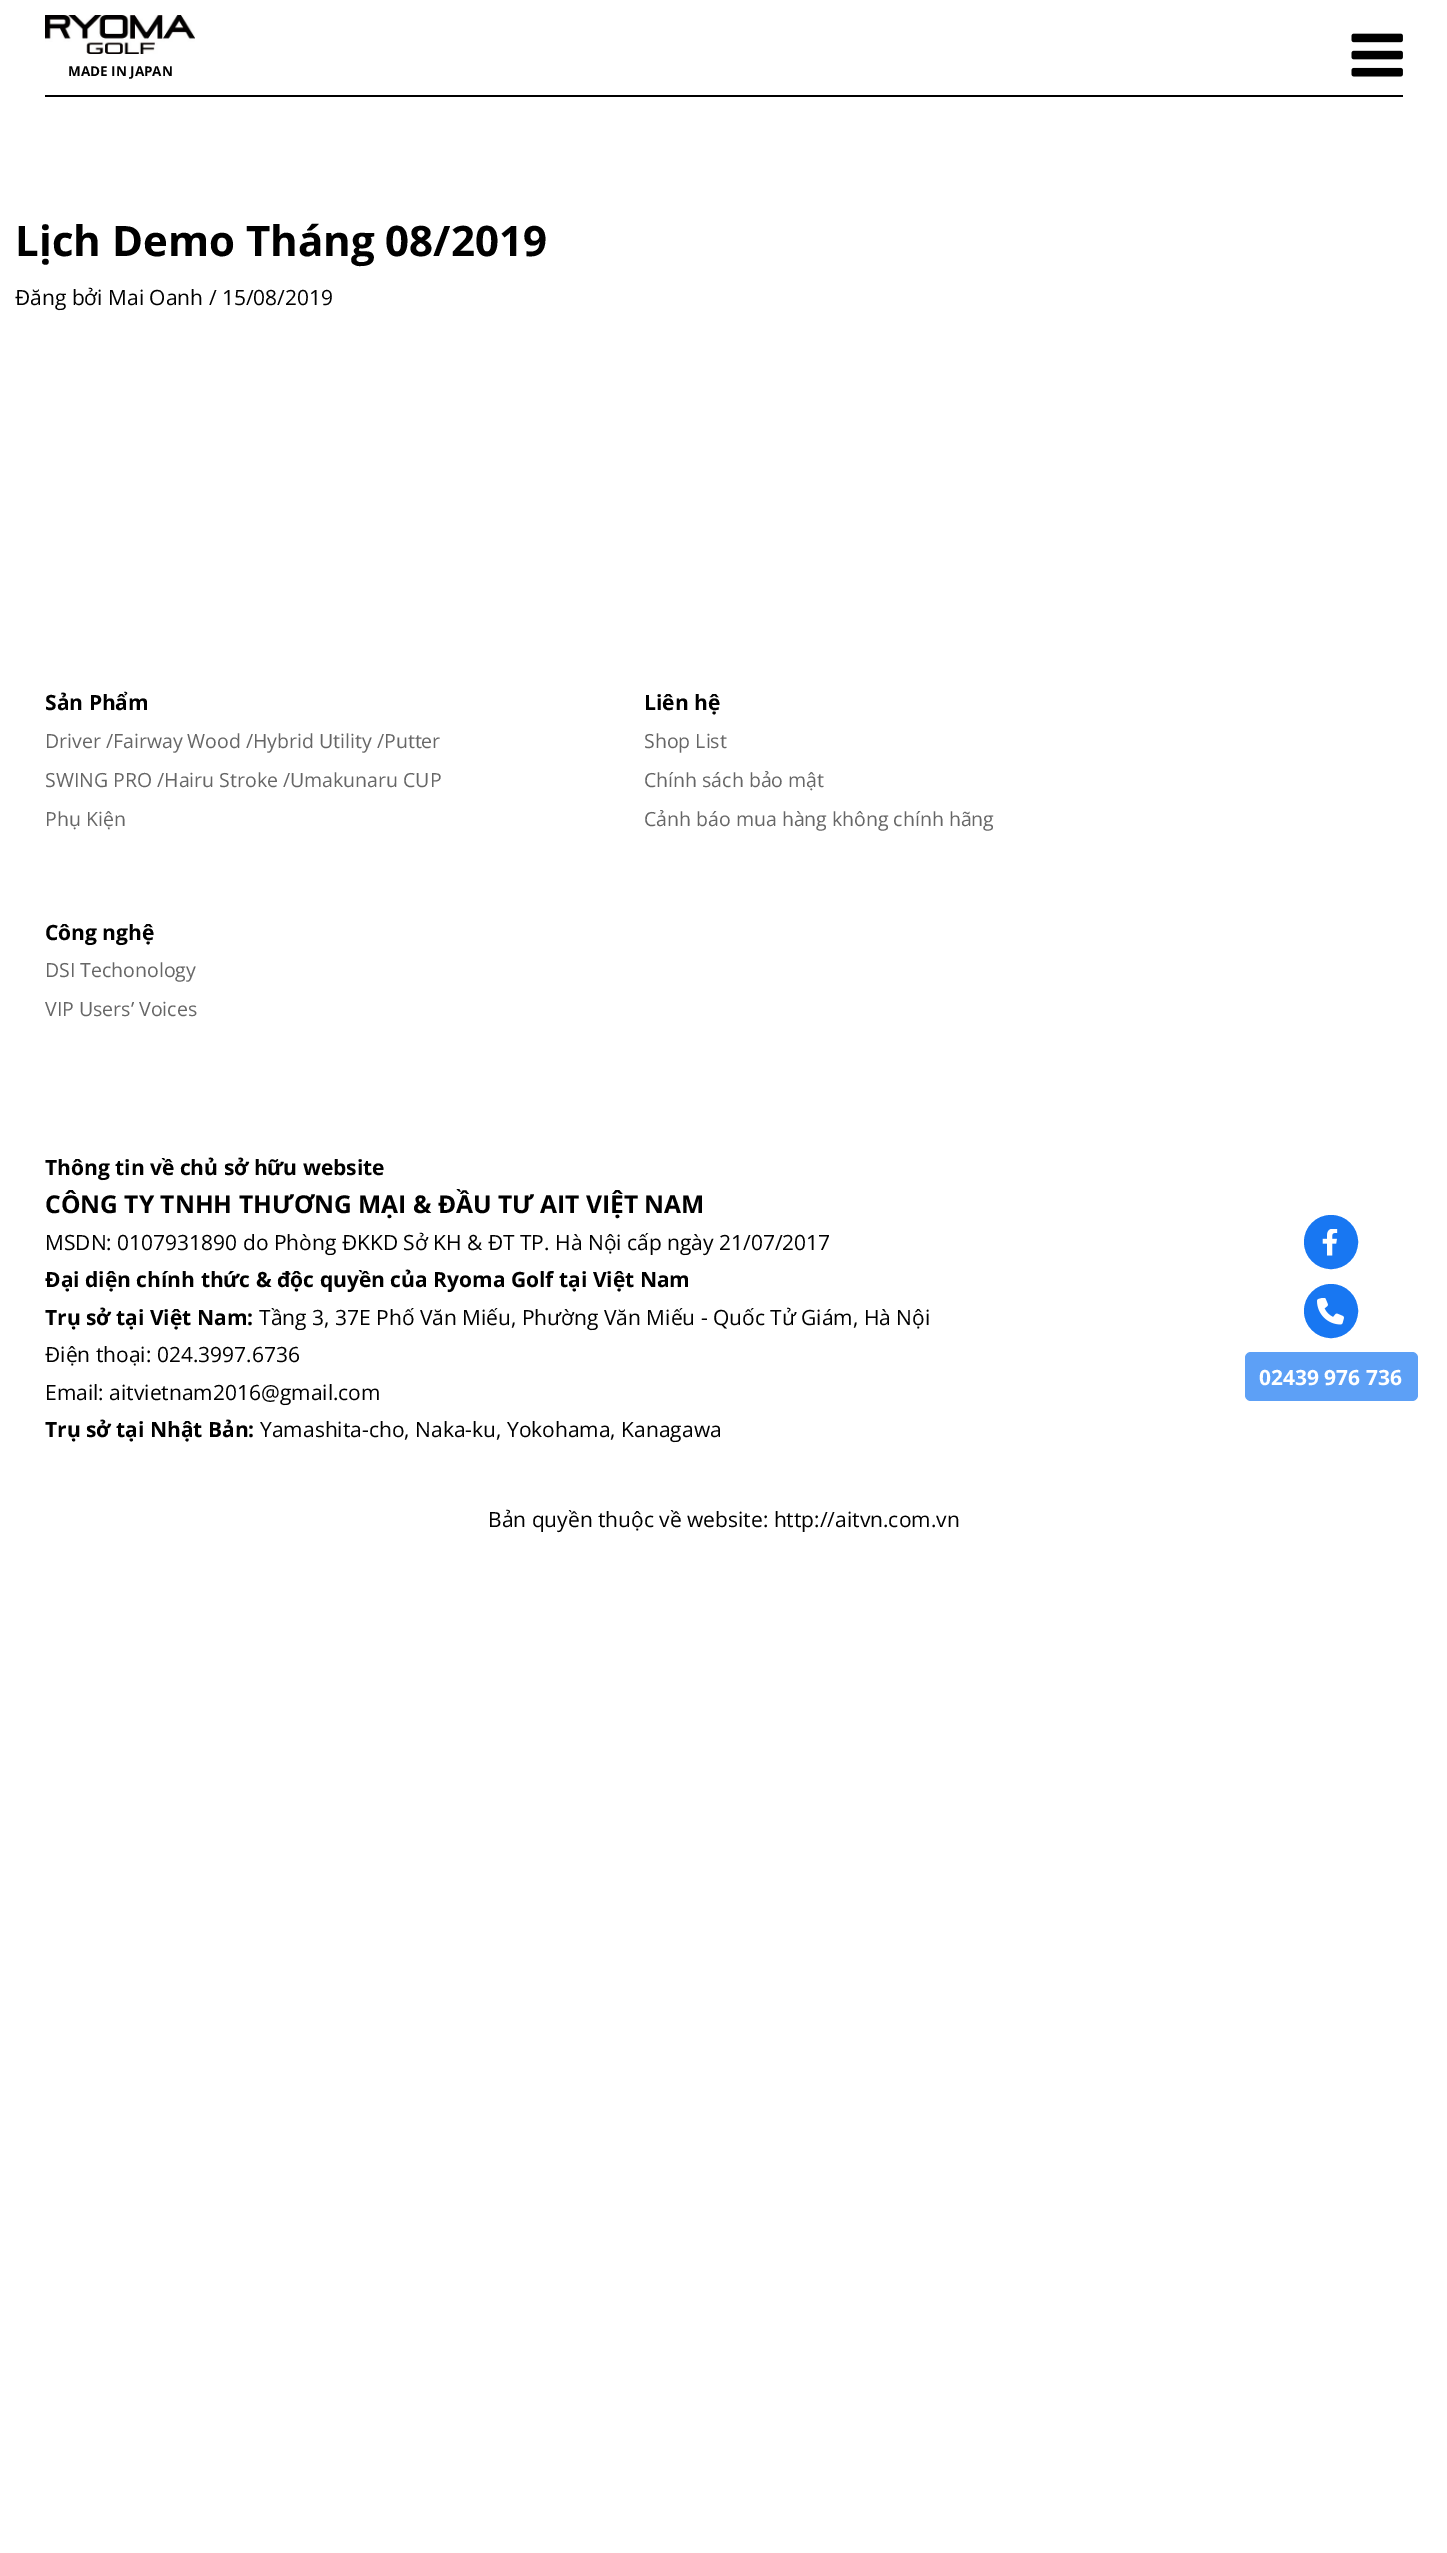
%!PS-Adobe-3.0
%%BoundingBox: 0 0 1447 2553
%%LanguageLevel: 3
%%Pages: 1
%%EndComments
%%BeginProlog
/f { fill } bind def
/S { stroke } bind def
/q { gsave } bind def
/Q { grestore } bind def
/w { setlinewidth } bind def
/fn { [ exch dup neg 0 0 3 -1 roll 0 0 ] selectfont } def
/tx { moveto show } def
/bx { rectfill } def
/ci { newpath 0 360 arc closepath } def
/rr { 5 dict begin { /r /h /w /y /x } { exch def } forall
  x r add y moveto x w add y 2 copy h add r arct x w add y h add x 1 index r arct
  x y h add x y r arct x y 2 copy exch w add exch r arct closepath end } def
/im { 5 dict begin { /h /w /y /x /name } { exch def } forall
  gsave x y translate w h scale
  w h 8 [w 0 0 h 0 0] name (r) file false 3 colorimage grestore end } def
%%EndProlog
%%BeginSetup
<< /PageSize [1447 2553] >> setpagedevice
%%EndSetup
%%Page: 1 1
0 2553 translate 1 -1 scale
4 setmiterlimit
1 setgray
0 0 1447 2553 bx
0 setgray
45 95 1358 2 bx
(image0.raw) 45 15 150 39 im
/OpenSans-Bold 13.5 fn
(MADE IN JAPAN) 68 76 tx
(image1.raw) 1351 33 52 44 im
/OpenSans-Bold 42 fn
(Lịch Demo Tháng 08/2019) 15 256 tx
/OpenSans-Regular 21 fn
(Đăng bởi Mai Oanh / 15/08/2019) 15 305 tx
/OpenSans-Bold 21 fn
(Sản Phẩm) 45 710 tx
/OpenSans-Regular 19.5 fn
0.4 setgray
(Driver /Fairway Wood /Hybrid Utility /Putter) 45 748 tx
(SWING PRO /Hairu Stroke /Umakunaru CUP) 45 787 tx
(Phụ Kiện) 45 826 tx
/OpenSans-Bold 21 fn
0 setgray
(Công nghệ) 45 940 tx
/OpenSans-Regular 19.5 fn
0.4 setgray
(DSI Techonology) 45 977 tx
(VIP Users’ Voices) 45 1016 tx
/OpenSans-Bold 21 fn
0 setgray
(Liên hệ) 644 710 tx
/OpenSans-Regular 19.5 fn
0.4 setgray
(Shop List) 644 748 tx
(Chính sách bảo mật) 644 787 tx
(Cảnh báo mua hàng không chính hãng) 644 826 tx
/OpenSans-Bold 21 fn
0 setgray
(Thông tin về chủ sở hữu website) 45 1175 tx
/OpenSans-Bold 24.6 fn
(CÔNG TY TNHH THƯƠNG MẠI & ĐẦU TƯ AIT VIỆT NAM) 45 1213 tx
/OpenSans-Regular 21 fn
(MSDN: 0107931890 do Phòng ĐKKD Sở KH & ĐT TP. Hà Nội cấp ngày 21/07/2017) 45 1250 tx
/OpenSans-Bold 21 fn
(Đại diện chính thức & độc quyền của Ryoma Golf tại Việt Nam) 45 1287 tx
(Trụ sở tại Việt Nam:) 45 1325 tx
/OpenSans-Regular 21 fn
(Tầng 3, 37E Phố Văn Miếu, Phường Văn Miếu - Quốc Tử Giám, Hà Nội) 259 1325 tx
(Điện thoại: 024.3997.6736) 45 1362 tx
(Email: aitvietnam2016@gmail.com) 45 1400 tx
/OpenSans-Bold 21 fn
(Trụ sở tại Nhật Bản:) 45 1437 tx
/OpenSans-Regular 21 fn
(Yamashita-cho, Naka-ku, Yokohama, Kanagawa) 260 1437 tx
(Bản quyền thuộc về website: http://aitvn.com.vn) 488 1527 tx
0.094 0.467 0.949 setrgbcolor
1331 1242 26 ci q f Q
2 w
S
(image2.raw) 1322 1229 16 27 im
1331 1311 26 ci q f Q
S
(image3.raw) 1317 1298 27 27 im
0.365 0.627 0.965 setrgbcolor
1245 1352 173 49 6 rr f
/OpenSans-Bold 21 fn
1 setgray
(02439 976 736) 1259 1385 tx
showpage
%%EOF
